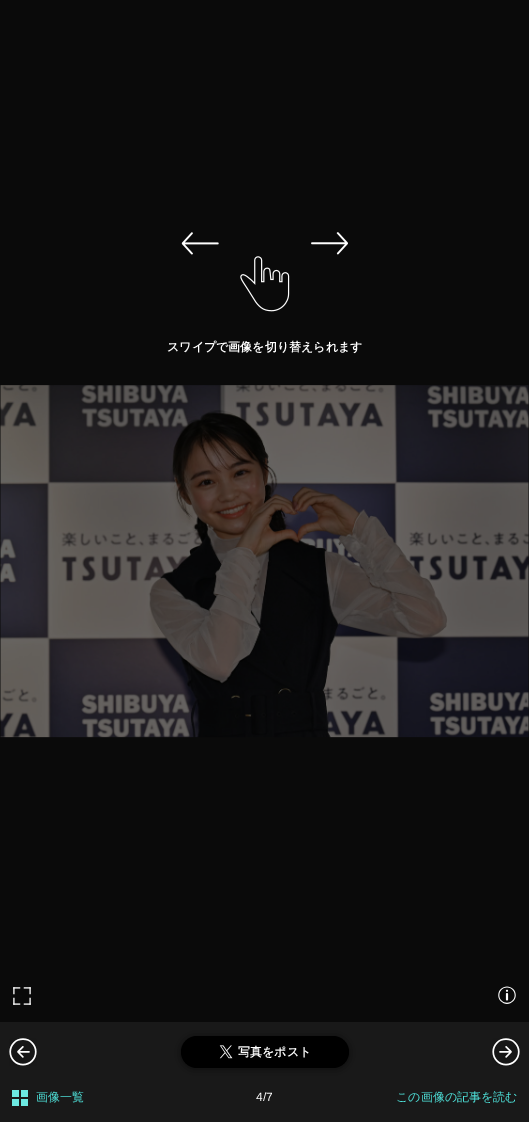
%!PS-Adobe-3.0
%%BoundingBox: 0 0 529 1122
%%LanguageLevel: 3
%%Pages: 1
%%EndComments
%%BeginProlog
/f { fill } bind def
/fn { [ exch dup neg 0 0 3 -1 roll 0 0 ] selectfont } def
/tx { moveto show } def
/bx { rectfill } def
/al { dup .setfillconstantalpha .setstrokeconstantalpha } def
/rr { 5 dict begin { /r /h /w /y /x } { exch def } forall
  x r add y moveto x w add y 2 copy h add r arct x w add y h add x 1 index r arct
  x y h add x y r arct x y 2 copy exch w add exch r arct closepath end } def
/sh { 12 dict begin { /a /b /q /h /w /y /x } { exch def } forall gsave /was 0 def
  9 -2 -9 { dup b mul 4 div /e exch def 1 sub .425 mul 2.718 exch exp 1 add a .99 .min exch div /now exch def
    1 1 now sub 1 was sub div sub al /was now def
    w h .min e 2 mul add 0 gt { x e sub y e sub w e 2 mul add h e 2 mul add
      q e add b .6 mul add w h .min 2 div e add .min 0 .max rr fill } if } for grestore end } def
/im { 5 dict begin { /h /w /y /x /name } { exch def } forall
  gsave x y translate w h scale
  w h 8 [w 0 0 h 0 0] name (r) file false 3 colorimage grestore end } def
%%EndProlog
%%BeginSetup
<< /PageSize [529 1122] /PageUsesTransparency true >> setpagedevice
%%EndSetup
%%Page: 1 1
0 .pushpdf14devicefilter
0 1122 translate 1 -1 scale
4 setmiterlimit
0.039 setgray
0 0 529 1122 bx
(image0.raw) 181 232 167 80 im
/WenQuanYiZenHei-Bold 12 fn
1 setgray
(スワイプで画像を切り替えられます) 167 351 tx
(image1.raw) 0 385 529 353 im
0.098 setgray
0 1022 529 100 bx
(image2.raw) 9 1038 28 28 im
(image3.raw) 492 1038 28 28 im
(image4.raw) 13 987 18 18 im
(image5.raw) 498 986 18 18 im
0 setgray
181 1037 168 32 16 5.5 0.5 sh
181 1036 168 32 16 rr f
(image6.raw) 219 1045 14 14 im
1 setgray
(写真をポスト) 238 1056 tx
(image7.raw) 12 1090 16 16 im
/WenQuanYiZenHei-Medium 12 fn
0.306 0.886 0.855 setrgbcolor
(画像一覧) 36 1101 tx
/LiberationSans-Regular 12 fn
1 setgray
(4/7) 256 1101 tx
/WenQuanYiZenHei-Medium 12 fn
0.306 0.886 0.855 setrgbcolor
(この画像の記事を読む) 396 1101 tx
.poppdf14devicefilter showpage
%%EOF
